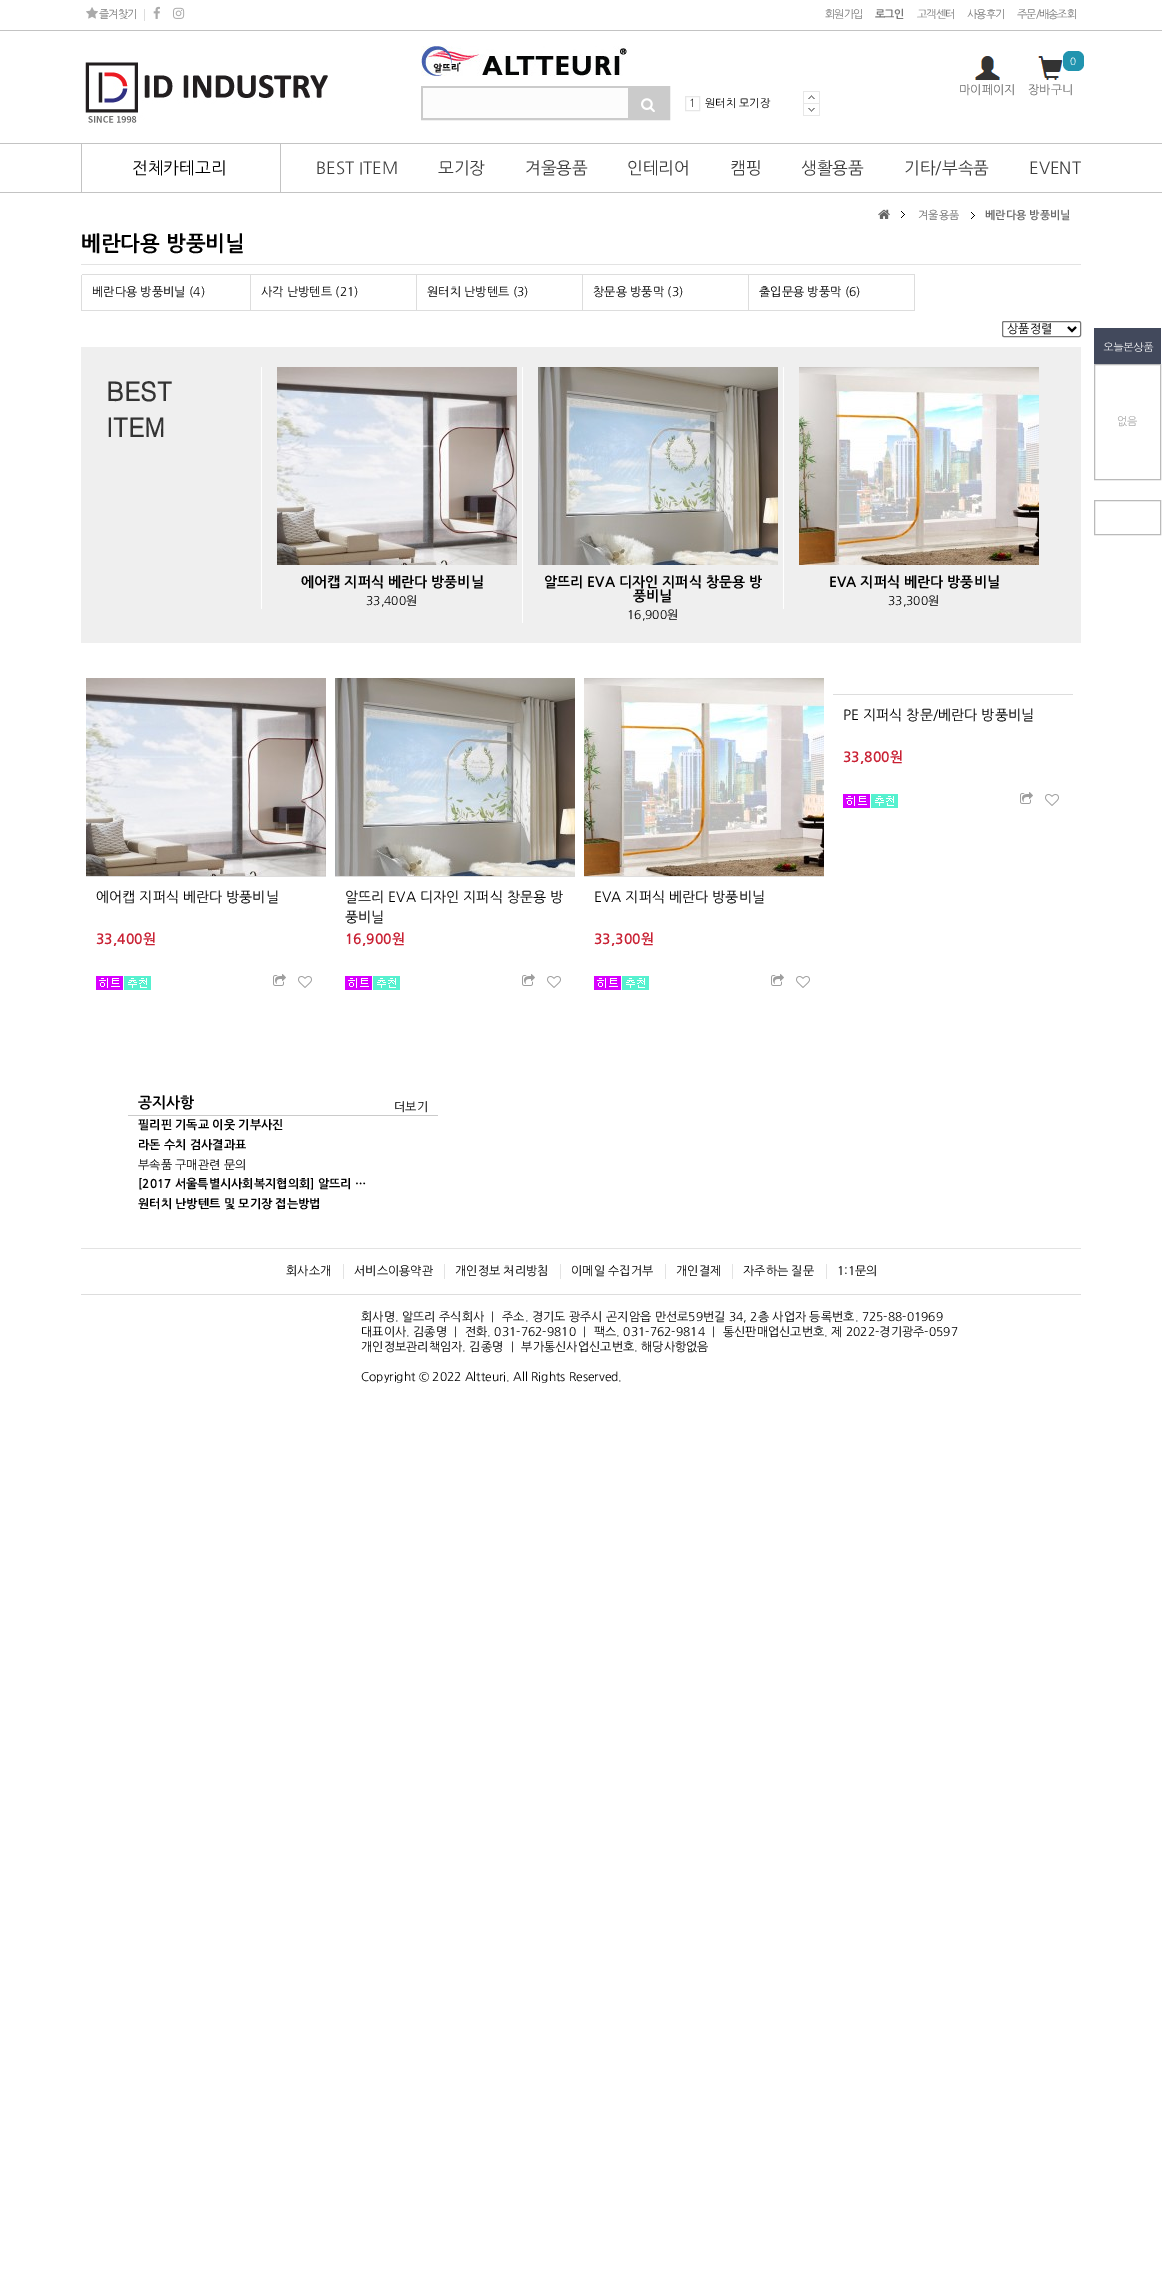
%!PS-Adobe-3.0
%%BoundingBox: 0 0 1162 2288
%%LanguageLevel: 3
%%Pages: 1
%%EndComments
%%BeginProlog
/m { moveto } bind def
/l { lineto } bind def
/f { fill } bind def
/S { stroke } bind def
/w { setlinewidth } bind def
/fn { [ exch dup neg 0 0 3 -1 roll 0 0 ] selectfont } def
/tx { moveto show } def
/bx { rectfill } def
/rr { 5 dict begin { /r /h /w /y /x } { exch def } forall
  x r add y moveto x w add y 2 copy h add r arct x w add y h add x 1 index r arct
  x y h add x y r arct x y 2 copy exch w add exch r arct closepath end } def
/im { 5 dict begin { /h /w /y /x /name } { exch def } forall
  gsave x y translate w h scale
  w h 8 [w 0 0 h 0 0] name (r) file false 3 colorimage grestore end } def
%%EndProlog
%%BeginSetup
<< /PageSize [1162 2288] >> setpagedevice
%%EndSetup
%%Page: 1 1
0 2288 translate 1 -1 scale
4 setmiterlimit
1 setgray
0 0 1162 2288 bx
0.765 setgray
0 192 1162 1 bx
0 30 1162 1 bx
(image0.raw) 86 7 12 12 im
/NanumGothic-Regular 11 fn
0.475 setgray
99 18 m -1 0 (즐겨찾기) ashow
0.867 setgray
144 9 1 12 bx
(image1.raw) 153 6 7 13 im
(image2.raw) 173 7 12 12 im
0.475 setgray
825 18 m -1 0 (회원가입) ashow
/NanumGothic-Bold 11 fn
875 18 m -1 0 (로그인) ashow
/NanumGothic-Regular 11 fn
917 18 m -1 0 (고객센터) ashow
967 18 m -1 0 (사용후기) ashow
1017 18 m -1 0 (주문/배송조회) ashow
(image3.raw) 85 62 243 61 im
(image4.raw) 421 46 206 30 im
(image5.raw) 975 56 25 24 im
/NanumGothic-Regular 12 fn
0.42 setgray
(마이페이지) 959 94 tx
(image6.raw) 1038 56 25 24 im
0.129 0.58 0.686 setrgbcolor
1063 51 21 20 7 rr f
/NanumGothic-Regular 10 fn
1 setgray
(0) 1070 65 tx
/NanumGothic-Regular 12 fn
0.42 setgray
(장바구니) 1028 94 tx
0.796 setgray
2 w
422 87 247 32 rectstroke
0.988 setgray
423 88 205 30 bx
0.796 setgray
628 88 40 30 bx
(image7.raw) 641 98 14 14 im
0.906 setgray
1 w
685.5 96.5 14 14 rectstroke
/NanumGothic-Regular 11 fn
0.2 setgray
(1) 689 107 tx
0 setgray
(원터치 모기장) 705 107 tx
(image8.raw) 803 91 17 12 im
(image9.raw) 803 103 17 13 im
0.765 setgray
0 143 1162 1 bx
280 144 1 48 bx
81 144 1 48 bx
/NanumGothic-Regular 16.75 fn
0 setgray
(전체카테고리) 132 174 tx
0.243 setgray
(BEST ITEM) 316 174 tx
(모기장) 438 174 tx
(겨울용품) 525 174 tx
(인테리어) 627 174 tx
(캠핑) 730 174 tx
(생활용품) 801 174 tx
(기타/부속품) 904 174 tx
(EVENT) 1029 174 tx
(image10.raw) 901 211 4 7 im
(image11.raw) 878 209 12 10 im
(image10.raw) 971 212 4 7 im
/NanumGothic-Regular 11 fn
0.42 setgray
(겨울용품) 918 219 tx
/NanumGothic-Bold 11 fn
(베란다용 방풍비닐) 985 219 tx
0.867 setgray
81 275 1 36 bx
82 274 833 1 bx
250 274 1 37 bx
82 310 169 1 bx
/NanumGothic-Regular 12 fn
0 setgray
(베란다용 방풍비닐 \(4\)) 92 296 tx
0.867 setgray
416 274 1 37 bx
251 310 166 1 bx
0 setgray
(사각 난방텐트 \(21\)) 261 296 tx
0.867 setgray
582 274 1 37 bx
417 310 166 1 bx
0 setgray
(원터치 난방텐트 \(3\)) 427 296 tx
0.867 setgray
748 274 1 37 bx
583 310 166 1 bx
0 setgray
(창문용 방풍막 \(3\)) 593 296 tx
0.867 setgray
914 274 1 37 bx
749 310 166 1 bx
0 setgray
(출입문용 방풍막 \(6\)) 759 296 tx
0.463 setgray
1002.5 321.5 78 15 1.5 rr S
0 setgray
2 w
1068 327 m 1072 331 l 1076 327 l S
(상품정렬) 1007 333 tx
0.937 setgray
81 347 1000 296 bx
/Dotum-Bold 26 fn
0.2 setgray
(BEST) 106 401 tx
(ITEM) 106 437 tx
1 setgray
261 367 1 242 bx
(image12.raw) 277 367 240 198 im
/NanumGothic-Bold 14 fn
0 setgray
(에어캡 지퍼식 베란다 방풍비닐) 301 587 tx
/NanumGothic-Regular 12 fn
(33,400원) 366 605 tx
1 setgray
522 367 1 256 bx
(image13.raw) 538 367 240 198 im
/NanumGothic-Bold 14 fn
0 setgray
(알뜨리 EVA 디자인 지퍼식 창문용 방) 544 587 tx
(풍비닐) 633 601 tx
/NanumGothic-Regular 12 fn
(16,900원) 627 619 tx
1 setgray
783 367 1 242 bx
(image14.raw) 799 367 240 198 im
/NanumGothic-Bold 14 fn
0 setgray
(EVA 지퍼식 베란다 방풍비닐) 829 587 tx
/NanumGothic-Regular 12 fn
(33,300원) 888 605 tx
0.867 setgray
833 694 240 1 bx
/NanumGothic-Regular 14 fn
0 setgray
(PE 지퍼식 창문/베란다 방풍비닐) 843 720 tx
/NanumGothic-Bold 14 fn
0.788 0.125 0.2 setrgbcolor
(33,800원) 843 762 tx
(image15.raw) 843 794 27 14 im
(image16.raw) 871 794 27 14 im
(image17.raw) 1020 792 13 12 im
(image18.raw) 1045 794 14 12 im
0.867 setgray
86 876 240 1 bx
(image12.raw) 86 678 240 198 im
/NanumGothic-Regular 14 fn
0 setgray
(에어캡 지퍼식 베란다 방풍비닐) 96 902 tx
/NanumGothic-Bold 14 fn
0.788 0.125 0.2 setrgbcolor
(33,400원) 96 944 tx
(image15.raw) 96 976 27 14 im
(image16.raw) 124 976 27 14 im
(image17.raw) 273 974 13 12 im
(image18.raw) 298 976 14 12 im
0.867 setgray
335 876 240 1 bx
(image13.raw) 335 678 240 198 im
/NanumGothic-Regular 14 fn
0 setgray
(알뜨리 EVA 디자인 지퍼식 창문용 방) 345 902 tx
(풍비닐) 345 922 tx
/NanumGothic-Bold 14 fn
0.788 0.125 0.2 setrgbcolor
(16,900원) 345 944 tx
(image15.raw) 345 976 27 14 im
(image16.raw) 373 976 27 14 im
(image17.raw) 522 974 13 12 im
(image18.raw) 547 976 14 12 im
0.867 setgray
584 876 240 1 bx
(image14.raw) 584 678 240 198 im
/NanumGothic-Regular 14 fn
0 setgray
(EVA 지퍼식 베란다 방풍비닐) 594 902 tx
/NanumGothic-Bold 14 fn
0.788 0.125 0.2 setrgbcolor
(33,300원) 594 944 tx
(image15.raw) 594 976 27 14 im
(image16.raw) 622 976 27 14 im
(image17.raw) 771 974 13 12 im
(image18.raw) 796 976 14 12 im
0.89 setgray
81 264 1000 1 bx
/NanumGothic-Bold 21 fn
0 setgray
(베란다용 방풍비닐) 81 251 tx
0.259 0.286 0.361 setrgbcolor
1094 328 67 36 bx
/Dotum-Regular 11 fn
1 setgray
1103 351 m -1 0 (오늘본상품) ashow
0.729 setgray
1 w
1094.5 364.5 66 115 rectstroke
/NanumGothic-Regular 11 fn
0.667 setgray
(없음) 1117 425 tx
0.729 setgray
1094.5 500.5 66 34 rectstroke
0.792 setgray
128 1115 310 1 bx
/NanumGothic-Bold 15 fn
0 setgray
(공지사항) 138 1108 tx
/NanumGothic-Regular 12 fn
(더보기) 394 1111 tx
/NanumGothic-Bold 12 fn
(필리핀 기독교 이웃 기부사진) 138 1129 tx
(라돈 수치 검사결과표) 138 1149 tx
/NanumGothic-Regular 12 fn
(부속품 구매관련 문의) 138 1169 tx
/NanumGothic-Bold 12 fn
([2017 서울특별시사회복지협의회] 알뜨리 …) 138 1188 tx
(원터치 난방텐트 및 모기장 접는방법) 138 1208 tx
0.89 setgray
81 1248 1000 1 bx
0.867 setgray
81 1294 1000 1 bx
/NanumGothic-Regular 12 fn
0 setgray
(회사소개) 286 1275 tx
0.89 setgray
343 1264 1 15 bx
0 setgray
(서비스이용약관) 354 1275 tx
0.89 setgray
444 1264 1 15 bx
0 setgray
(개인정보 처리방침) 455 1275 tx
0.89 setgray
560 1264 1 15 bx
0 setgray
(이메일 수집거부) 571 1275 tx
0.89 setgray
665 1264 1 15 bx
0 setgray
(개인결제) 676 1275 tx
0.89 setgray
732 1264 1 15 bx
0 setgray
(자주하는 질문) 743 1275 tx
0.89 setgray
826 1264 1 15 bx
0 setgray
(1:1문의) 837 1275 tx
(회사명. 알뜨리 주식회사 ｜ 주소. 경기도 광주시 곤지암읍 만선로59번길 34, 2층 사업자 등록번호. 725-88-01969) 361 1321 tx
(대표이사. 김종명 ｜ 전화. 031-762-9810 ｜ 팩스. 031-762-9814 ｜ 통신판매업신고번호. 제 2022-경기광주-0597) 361 1336 tx
(개인정보관리책임자. 김종명 ｜ 부가통신사업신고번호. 해당사항없음) 361 1351 tx
(Copyright © 2022 Altteuri. All Rights Reserved.) 361 1381 tx
showpage
%%EOF
